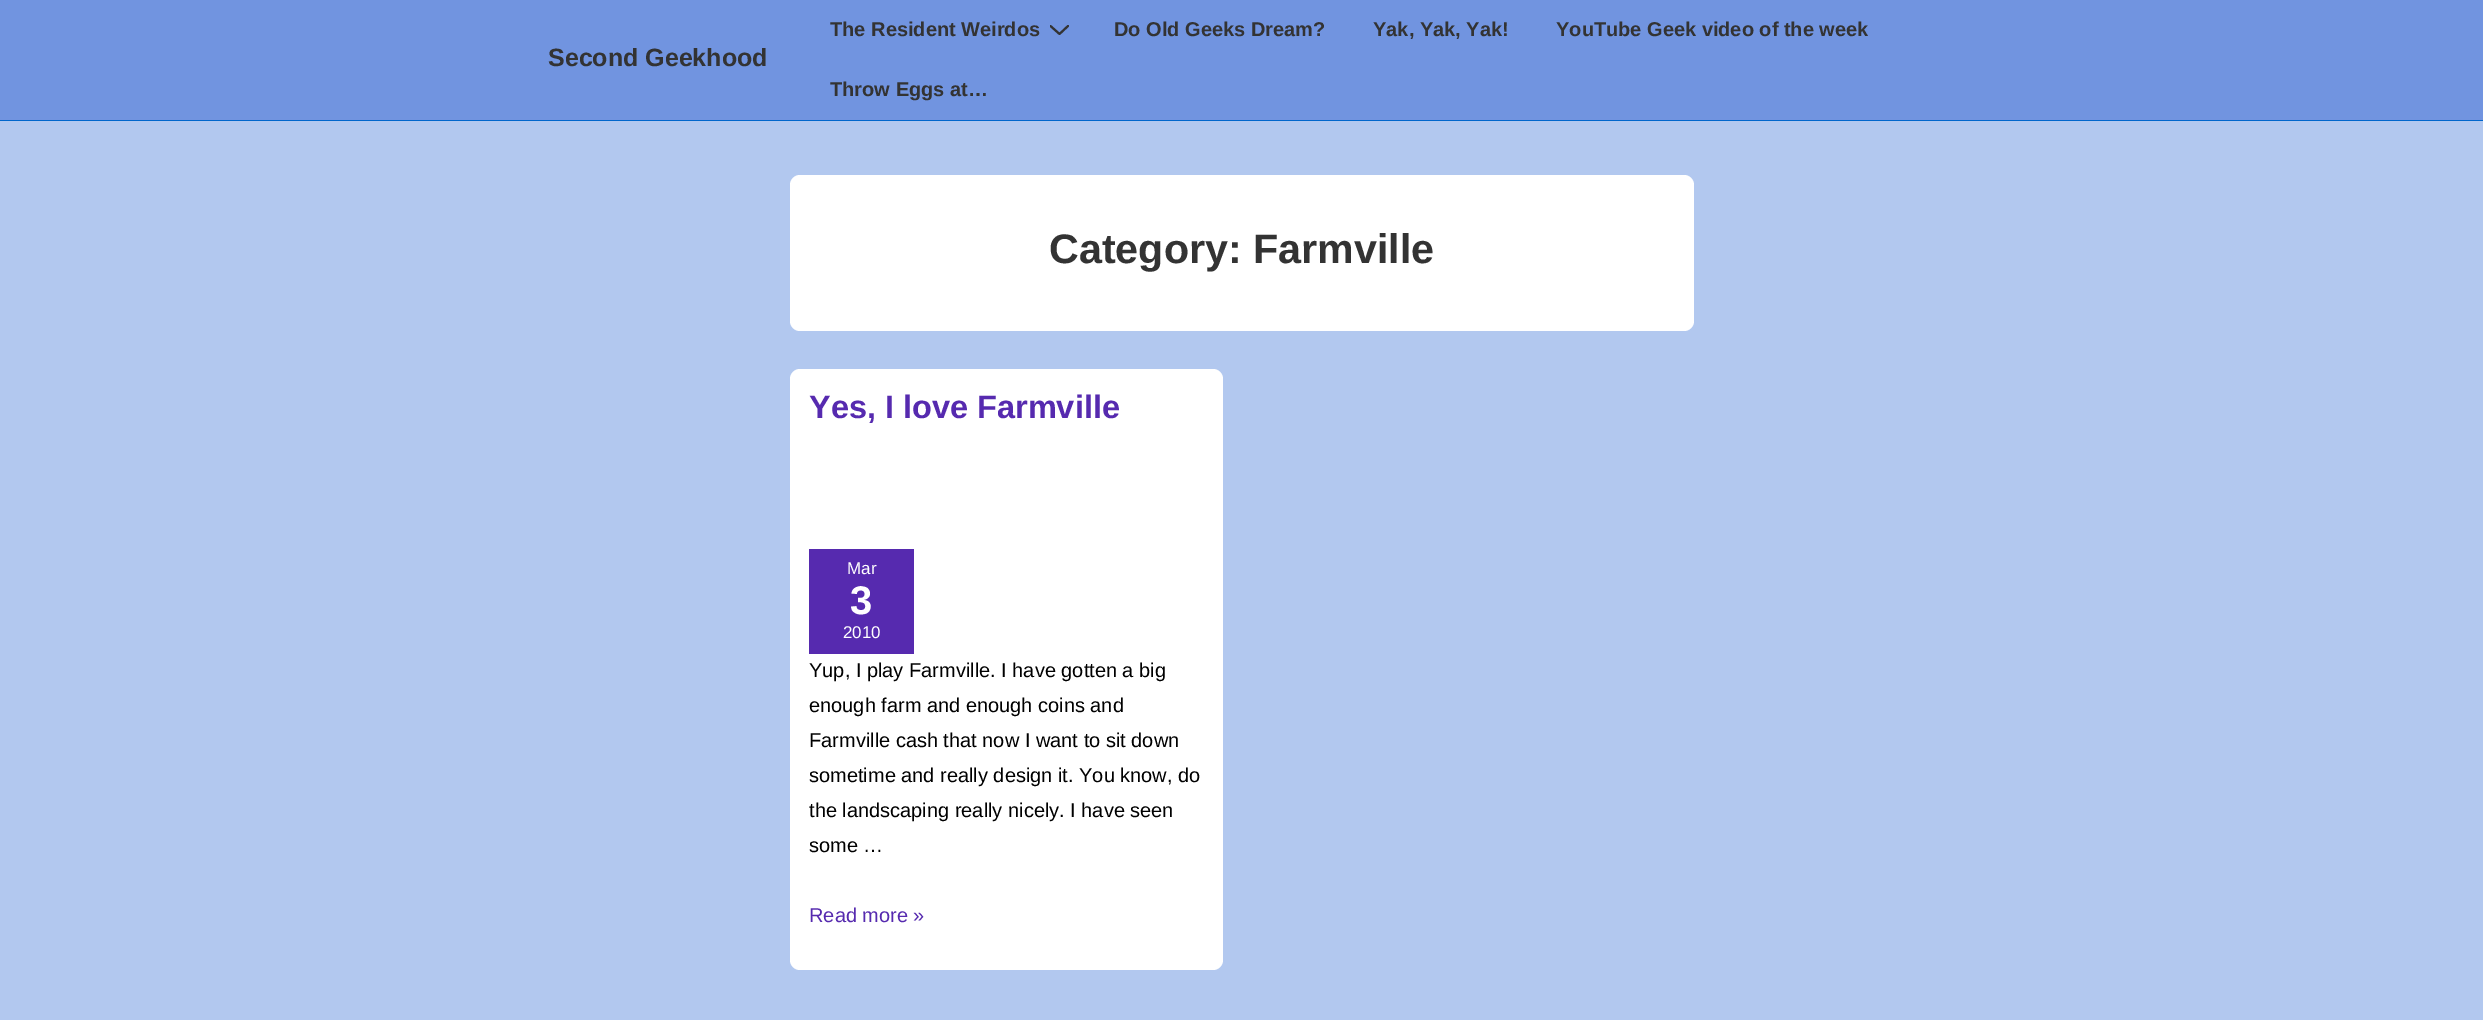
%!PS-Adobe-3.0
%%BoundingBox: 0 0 2483 1020
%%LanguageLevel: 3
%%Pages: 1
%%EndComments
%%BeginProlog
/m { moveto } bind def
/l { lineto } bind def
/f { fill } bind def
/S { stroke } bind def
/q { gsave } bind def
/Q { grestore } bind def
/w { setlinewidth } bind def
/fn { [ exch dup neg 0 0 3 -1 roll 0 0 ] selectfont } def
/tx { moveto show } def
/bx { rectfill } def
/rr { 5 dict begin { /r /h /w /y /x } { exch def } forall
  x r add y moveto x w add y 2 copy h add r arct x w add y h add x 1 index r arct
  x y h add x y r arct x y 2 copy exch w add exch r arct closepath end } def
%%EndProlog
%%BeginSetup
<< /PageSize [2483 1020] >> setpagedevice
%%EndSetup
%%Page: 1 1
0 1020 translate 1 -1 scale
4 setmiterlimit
0.698 0.784 0.937 setrgbcolor
0 0 2483 1020 bx
0.443 0.58 0.878 setrgbcolor
0 0 2483 120 bx
0 0.4 0.8 setrgbcolor
0 120 2483 1 bx
/LiberationSans-Bold 25 fn
0.2 setgray
(Second Geekhood) 548 66 tx
/LiberationSans-Bold 20 fn
(The Resident Weirdos) 830 36 tx
q
1050 25 19 10 rectclip
2 w
1 setlinecap
1050.5 26 m 1059.5 34 l 1068 26 l S
Q
(Do Old Geeks Dream?) 1114 36 tx
(Yak, Yak, Yak!) 1373 36 tx
(YouTube Geek video of the week) 1556 36 tx
(Throw Eggs at…) 830 96 tx
1 setgray
790 175 904 156 10 rr f
/LiberationSans-Bold 41.25 fn
0.2 setgray
(Category: Farmville) 1049 263 tx
1 setgray
790 369 433 601 10 rr f
/LiberationSans-Bold 32.5 fn
0.337 0.165 0.686 setrgbcolor
(Yes, I love Farmville) 809 418 tx
809 549 105 105 bx
/LiberationSans-Regular 17 fn
1 setgray
(Mar) 847 574 tx
/LiberationSans-Bold 40 fn
(3) 850 614 tx
/LiberationSans-Regular 17 fn
(2010) 843 638 tx
/LiberationSans-Regular 20 fn
0 setgray
(Yup, I play Farmville. I have gotten a big) 809 677 tx
(enough farm and enough coins and) 809 712 tx
(Farmville cash that now I want to sit down) 809 747 tx
(sometime and really design it. You know, do) 809 782 tx
(the landscaping really nicely. I have seen) 809 817 tx
(some …) 809 852 tx
0.337 0.165 0.686 setrgbcolor
(Read more ») 809 922 tx
showpage
%%EOF
